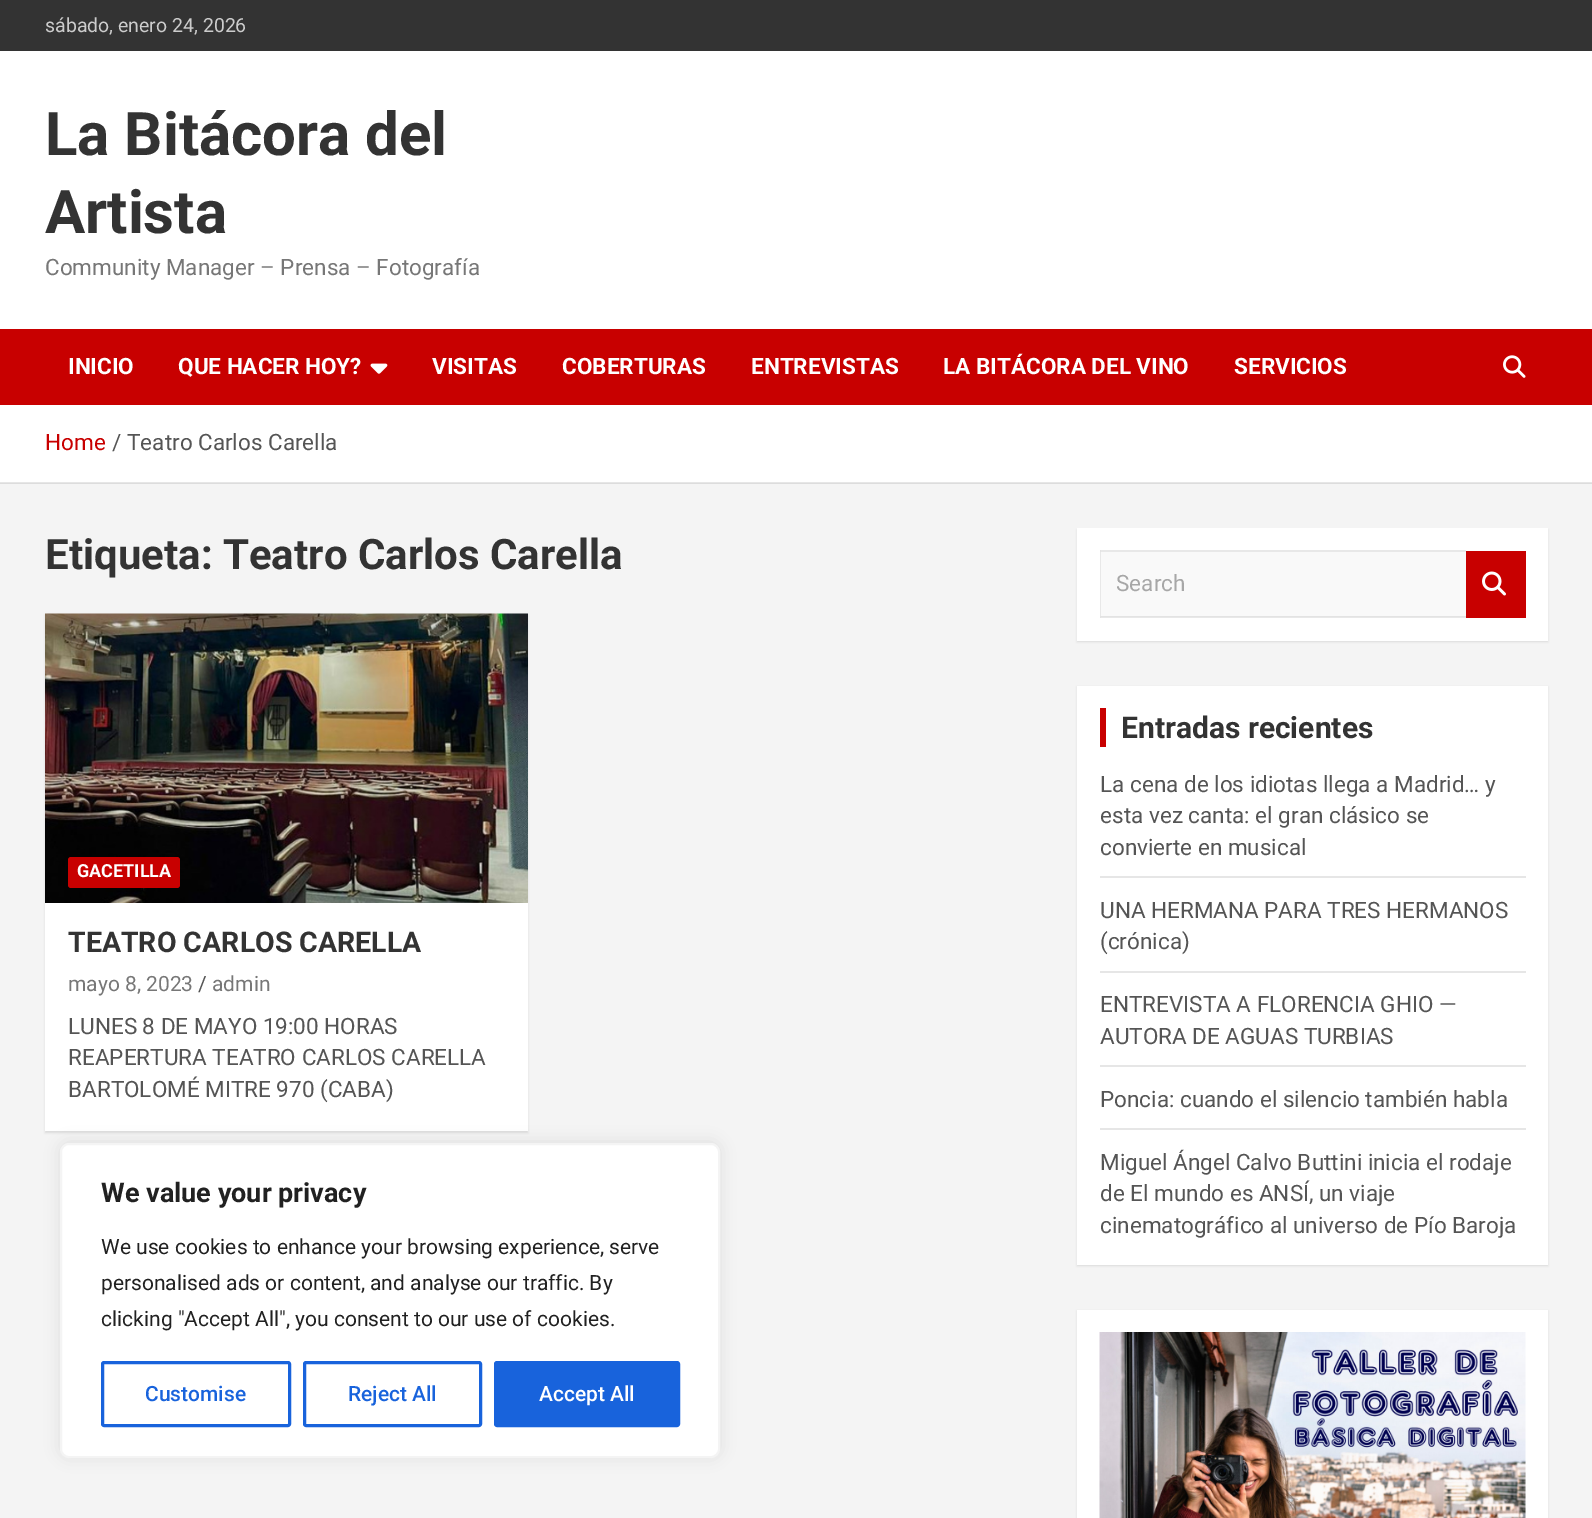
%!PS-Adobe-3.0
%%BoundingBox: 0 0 1592 1518
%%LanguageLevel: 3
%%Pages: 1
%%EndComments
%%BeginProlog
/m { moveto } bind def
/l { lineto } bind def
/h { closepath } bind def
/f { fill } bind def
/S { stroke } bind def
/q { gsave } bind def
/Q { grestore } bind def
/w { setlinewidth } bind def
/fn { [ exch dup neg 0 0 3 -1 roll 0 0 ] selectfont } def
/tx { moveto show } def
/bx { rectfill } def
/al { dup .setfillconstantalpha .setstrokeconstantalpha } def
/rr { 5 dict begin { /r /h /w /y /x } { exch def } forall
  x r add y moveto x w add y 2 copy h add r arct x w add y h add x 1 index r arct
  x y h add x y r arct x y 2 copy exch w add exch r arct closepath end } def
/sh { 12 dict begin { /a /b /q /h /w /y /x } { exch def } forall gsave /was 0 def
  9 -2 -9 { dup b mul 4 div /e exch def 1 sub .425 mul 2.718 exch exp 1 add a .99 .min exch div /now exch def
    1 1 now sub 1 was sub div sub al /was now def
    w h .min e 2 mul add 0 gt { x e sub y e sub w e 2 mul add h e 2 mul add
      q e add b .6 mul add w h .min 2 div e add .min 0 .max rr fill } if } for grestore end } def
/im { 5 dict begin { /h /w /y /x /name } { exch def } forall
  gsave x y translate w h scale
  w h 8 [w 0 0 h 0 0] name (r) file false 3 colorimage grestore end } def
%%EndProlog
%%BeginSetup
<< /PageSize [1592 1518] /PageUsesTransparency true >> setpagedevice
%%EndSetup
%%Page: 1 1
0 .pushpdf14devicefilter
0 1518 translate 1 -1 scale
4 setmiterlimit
0.957 setgray
0 0 1592 1518 bx
0.863 setgray
0 483 1592 1 bx
0.2 setgray
0 0 1592 51 bx
/Roboto-Regular 19.5 fn
0.8 setgray
(sábado, enero 24, 2026) 45 32 tx
1 setgray
0 51 1592 278 bx
/Roboto-Bold 60 fn
0.2 setgray
(La Bitácora del) 45 155 tx
(Artista) 45 233 tx
/Roboto-Regular 22.5 fn
0.467 setgray
(Community Manager – Prensa – Fotografía) 45 275 tx
0.784 0 0 setrgbcolor
0 329 1592 76 bx
/Roboto-Bold 22.5 fn
1 setgray
(INICIO) 68 374 tx
(QUE HACER HOY?) 178 374 tx
(image0.raw) 370 363 18 11 im
(VISITAS) 432 374 tx
(COBERTURAS) 562 374 tx
(ENTREVISTAS) 751 374 tx
(LA BITÁCORA DEL VINO) 943 374 tx
(SERVICIOS) 1234 374 tx
(image1.raw) 1503 355 23 23 im
0 405 1592 77 bx
0.902 setgray
0 482 1592 1 bx
/Roboto-Regular 22.5 fn
0.784 0 0 setrgbcolor
(Home) 45 450 tx
0.333 setgray
(/) 112 450 tx
(Teatro Carlos Carella) 127 450 tx
/Roboto-Bold 42 fn
0.2 setgray
(Etiqueta: Teatro Carlos Carella) 45 569 tx
0 setgray
45 615 483 518 0 1 0.1 sh
1 setgray
45 903 483 228 bx
(image2.raw) 45 613 483 290 im
0.784 0 0 setrgbcolor
68 857 112 31 3 rr f
/Roboto-Bold 18 fn
1 setgray
(GACETILLA) 77 877 tx
/Roboto-Bold 28.5 fn
0.2 setgray
(TEATRO CARLOS CARELLA) 68 952 tx
/Roboto-Regular 21 fn
0.467 setgray
(mayo 8, 2023) 68 991 tx
0.333 setgray
(/) 198 991 tx
0.467 setgray
(admin) 212 991 tx
/Roboto-Regular 22.5 fn
0.333 setgray
(LUNES 8 DE MAYO 19:00 HORAS) 68 1034 tx
(REAPERTURA TEATRO CARLOS CARELLA) 68 1065 tx
(BARTOLOMÉ MITRE 970 \(CABA\)) 68 1097 tx
0 setgray
1077 530 471 112 0 1 0.1 sh
1 setgray
1077 528 471 113 bx
0.976 setgray
1101 552 365 65 bx
0.91 setgray
1100 550 m 1466 550 l 1466 552 l 1101 552 l h f
0.09 al
0 setgray
1466 618 m 1100 618 l 1101 616 l 1466 616 l h f
1100 618 m 1100 550 l 1101 552 l 1101 616 l h f
1 al
0.655 setgray
(Search) 1116 591 tx
0.784 0 0 setrgbcolor
1466 551 60 67 bx
(image3.raw) 1482 571 24 25 im
0 setgray
1077 687 471 579 0 1 0.1 sh
1 setgray
1077 686 471 579 bx
0.784 0 0 setrgbcolor
1100 708 6 39 bx
/Roboto-Bold 30 fn
0.2 setgray
(Entradas recientes) 1121 738 tx
0.902 setgray
1100 876 426 2 bx
/Roboto-Regular 22.5 fn
0.333 setgray
(La cena de los idiotas llega a Madrid… y) 1100 792 tx
(esta vez canta: el gran clásico se) 1100 823 tx
(convierte en musical) 1100 855 tx
0.902 setgray
1100 971 426 2 bx
0.333 setgray
(UNA HERMANA PARA TRES HERMANOS) 1100 918 tx
(\(crónica\)) 1100 949 tx
0.902 setgray
1100 1065 426 2 bx
0.333 setgray
(ENTREVISTA A FLORENCIA GHIO —) 1100 1012 tx
(AUTORA DE AGUAS TURBIAS) 1100 1044 tx
0.902 setgray
1100 1128 426 2 bx
0.333 setgray
(Poncia: cuando el silencio también habla) 1100 1107 tx
(Miguel Ángel Calvo Buttini inicia el rodaje) 1100 1170 tx
(de El mundo es ANSÍ, un viaje) 1100 1201 tx
(cinematográfico al universo de Pío Baroja) 1100 1233 tx
0 setgray
1077 1311 471 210 0 1 0.1 sh
1 setgray
1077 1310 471 208 bx
(image4.raw) 1099 1332 427 186 im
0.675 0.671 0.671 setrgbcolor
60 1142 660 315 9 7.5 0.3 sh
1 setgray
61 1144 658 313 8 rr q f Q
0.957 setgray
2 w
S
/Roboto-Bold 27 fn
0.129 setgray
(We value your privacy) 101 1202 tx
/Roboto-Regular 21 fn
(We use cookies to enhance your browsing experience, serve) 101 1254 tx
(personalised ads or content, and analyse our traffic. By) 101 1290 tx
(clicking "Accept All", you consent to our use of cookies.) 101 1326 tx
0.094 0.388 0.863 setrgbcolor
3 w
102.5 1362.5 187 63 1.5 rr S
/Roboto-Medium 21 fn
(Customise) 145 1401 tx
304.5 1362.5 176 63 1.5 rr S
(Reject All) 348 1401 tx
495.5 1362.5 183 63 1.5 rr q f Q
S
1 setgray
(Accept All) 539 1401 tx
.poppdf14devicefilter showpage
%%EOF
